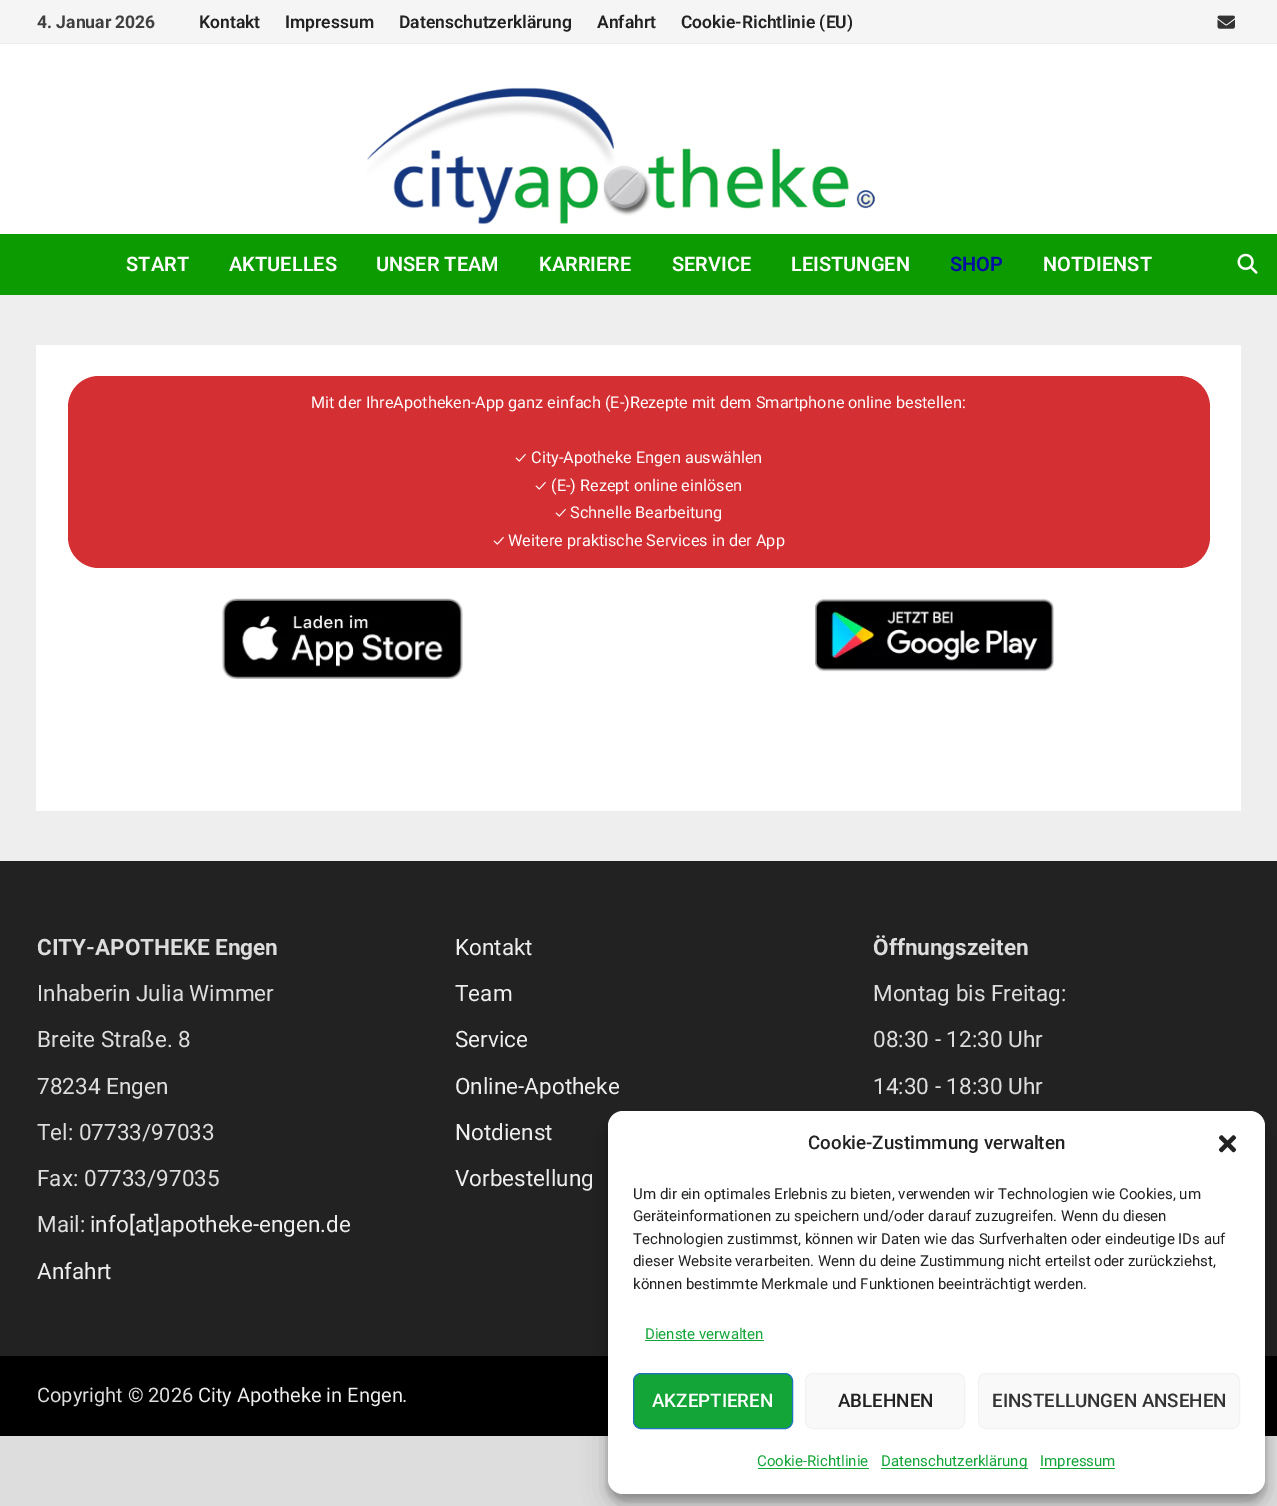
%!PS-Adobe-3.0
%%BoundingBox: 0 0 1277 1506
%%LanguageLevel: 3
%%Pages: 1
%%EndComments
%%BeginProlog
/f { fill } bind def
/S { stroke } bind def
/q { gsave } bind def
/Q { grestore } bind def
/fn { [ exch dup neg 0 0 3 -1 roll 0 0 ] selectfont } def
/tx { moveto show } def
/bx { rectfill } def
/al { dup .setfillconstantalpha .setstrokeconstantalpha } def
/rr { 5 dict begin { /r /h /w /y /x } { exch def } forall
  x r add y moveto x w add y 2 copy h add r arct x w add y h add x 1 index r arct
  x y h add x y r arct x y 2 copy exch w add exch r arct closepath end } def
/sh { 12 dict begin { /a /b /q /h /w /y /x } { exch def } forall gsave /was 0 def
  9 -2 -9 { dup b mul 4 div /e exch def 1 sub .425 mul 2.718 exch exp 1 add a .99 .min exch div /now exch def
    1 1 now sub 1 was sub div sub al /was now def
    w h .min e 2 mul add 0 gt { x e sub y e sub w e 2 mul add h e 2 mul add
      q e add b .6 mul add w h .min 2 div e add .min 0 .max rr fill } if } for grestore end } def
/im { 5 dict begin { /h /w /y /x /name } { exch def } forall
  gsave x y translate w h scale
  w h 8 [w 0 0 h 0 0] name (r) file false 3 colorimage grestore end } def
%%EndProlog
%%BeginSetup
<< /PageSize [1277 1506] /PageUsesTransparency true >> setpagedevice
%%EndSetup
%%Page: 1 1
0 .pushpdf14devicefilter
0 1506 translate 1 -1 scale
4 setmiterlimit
0.867 setgray
0 0 1277 1506 bx
1 setgray
0 44 1277 190 bx
0.961 setgray
0 0 1277 43 bx
0.933 setgray
0 43 1277 1 bx
/Roboto-Bold 17.5 fn
0.251 setgray
(4. Januar 2026) 37 28 tx
/Roboto-SemiBold 17.5 fn
0.133 setgray
(Kontakt) 199 28 tx
(Impressum) 285 28 tx
(Datenschutzerklärung) 399 28 tx
(Anfahrt) 597 28 tx
(Cookie-Richtlinie \(EU\)) 681 28 tx
(image0.raw) 1217 15 18 14 im
(image1.raw) 367 87 508 138 im
0.047 0.608 0 setrgbcolor
0 234 1277 61 bx
/Roboto-SemiBold 20 fn
1 setgray
(START) 126 271 tx
(AKTUELLES) 229 271 tx
(UNSER TEAM) 376 271 tx
(KARRIERE) 539 271 tx
(SERVICE) 672 271 tx
(LEISTUNGEN) 791 271 tx
0.004 0.059 0.639 setrgbcolor
(SHOP) 950 271 tx
1 setgray
(NOTDIENST) 1043 271 tx
(image2.raw) 1237 253 21 21 im
0.933 setgray
0 295 1277 566 bx
1 setgray
36 345 1205 466 bx
0.831 0.188 0.204 setrgbcolor
68 376 1142 192 31 rr f
/Roboto-Regular 16.25 fn
1 setgray
(Mit der IhreApotheken-App ganz einfach \(E-\)Rezepte mit dem Smartphone online bestellen:) 311 408 tx
/Ubuntu-Regular 16.25 fn
(✓) 515 463 tx
/Roboto-Regular 16.25 fn
(City-Apotheke Engen auswählen) 531 463 tx
/Ubuntu-Regular 16.25 fn
(✓) 535 491 tx
/Roboto-Regular 16.25 fn
(\(E-\) Rezept online einlösen) 551 491 tx
/Ubuntu-Regular 16.25 fn
(✓) 555 518 tx
/Roboto-Regular 16.25 fn
(Schnelle Bearbeitung) 570 518 tx
/Ubuntu-Regular 16.25 fn
(✓) 493 546 tx
/Roboto-Regular 16.25 fn
(Weitere praktische Services in der App) 508 546 tx
(image3.raw) 222 598 241 81 im
(image4.raw) 815 598 239 74 im
0.133 setgray
0 861 1277 495 bx
/Roboto-Bold 22.5 fn
0.867 setgray
(CITY-APOTHEKE Engen) 37 955 tx
/Roboto-Regular 22.5 fn
(Inhaberin Julia Wimmer) 37 1001 tx
(Breite Straße. 8) 37 1047 tx
(78234 Engen) 37 1094 tx
(Tel: 07733/97033) 37 1140 tx
(Fax: 07733/97035) 37 1186 tx
(Mail:) 37 1232 tx
0.933 setgray
(info[at]apotheke-engen.de) 90 1232 tx
(Anfahrt) 37 1279 tx
(Kontakt) 455 955 tx
(Team) 455 1001 tx
(Service) 455 1047 tx
(Online-Apotheke) 455 1094 tx
(Notdienst) 455 1140 tx
(Vorbestellung) 455 1186 tx
/Roboto-Bold 22.5 fn
0.867 setgray
(Öffnungszeiten) 873 955 tx
/Roboto-Regular 22.5 fn
(Montag bis Freitag:) 873 1001 tx
(08:30 - 12:30 Uhr) 873 1047 tx
(14:30 - 18:30 Uhr) 873 1094 tx
0 setgray
0 1356 1277 80 bx
/Roboto-Regular 20 fn
0.867 setgray
(Copyright © 2026) 37 1402 tx
0.933 setgray
(City Apotheke in Engen) 198 1402 tx
0.867 setgray
(.) 402 1402 tx
0 setgray
608 1119 657 382 15 4 0.23 sh
608 1124 657 382 15 12.5 0.19 sh
1 setgray
608 1111 657 383 15 rr f
/Roboto-Medium 18.75 fn
0.133 setgray
(Cookie-Zustimmung verwalten) 808 1149 tx
(image5.raw) 1218 1135 19 18 im
/Roboto-Regular 15 fn
(Um dir ein optimales Erlebnis zu bieten, verwenden wir Technologien wie Cookies, um) 633 1199 tx
(Geräteinformationen zu speichern und/oder darauf zuzugreifen. Wenn du diesen) 633 1221 tx
(Technologien zustimmst, können wir Daten wie das Surfverhalten oder eindeutige IDs auf) 633 1244 tx
(dieser Website verarbeiten. Wenn du deine Zustimmung nicht erteilst oder zurückziehst,) 633 1266 tx
(können bestimmte Merkmale und Funktionen beeinträchtigt werden.) 633 1289 tx
0.075 0.647 0.22 setrgbcolor
(Dienste verwalten) 645 1339 tx
645 1340 119 1 bx
633.5 1373.5 159 55 7.5 rr q f Q
0.118 0.451 0.745 setrgbcolor
S
/Roboto-Medium 18.75 fn
1 setgray
(AKZEPTIEREN) 652 1407 tx
0.976 setgray
805.5 1373.5 159 55 7.5 rr q f Q
0.949 setgray
S
0.133 setgray
(ABLEHNEN) 838 1407 tx
0.976 setgray
978.5 1373.5 261 55 7.5 rr q f Q
0.949 setgray
S
0.2 setgray
(EINSTELLUNGEN ANSEHEN) 992 1407 tx
/Roboto-Regular 15 fn
0.075 0.647 0.22 setrgbcolor
(Cookie-Richtlinie) 757 1466 tx
758 1468 111 1 bx
881 1468 147 1 bx
(Datenschutzerklärung) 881 1466 tx
1040 1468 75 1 bx
(Impressum) 1040 1466 tx
.poppdf14devicefilter showpage
%%EOF
